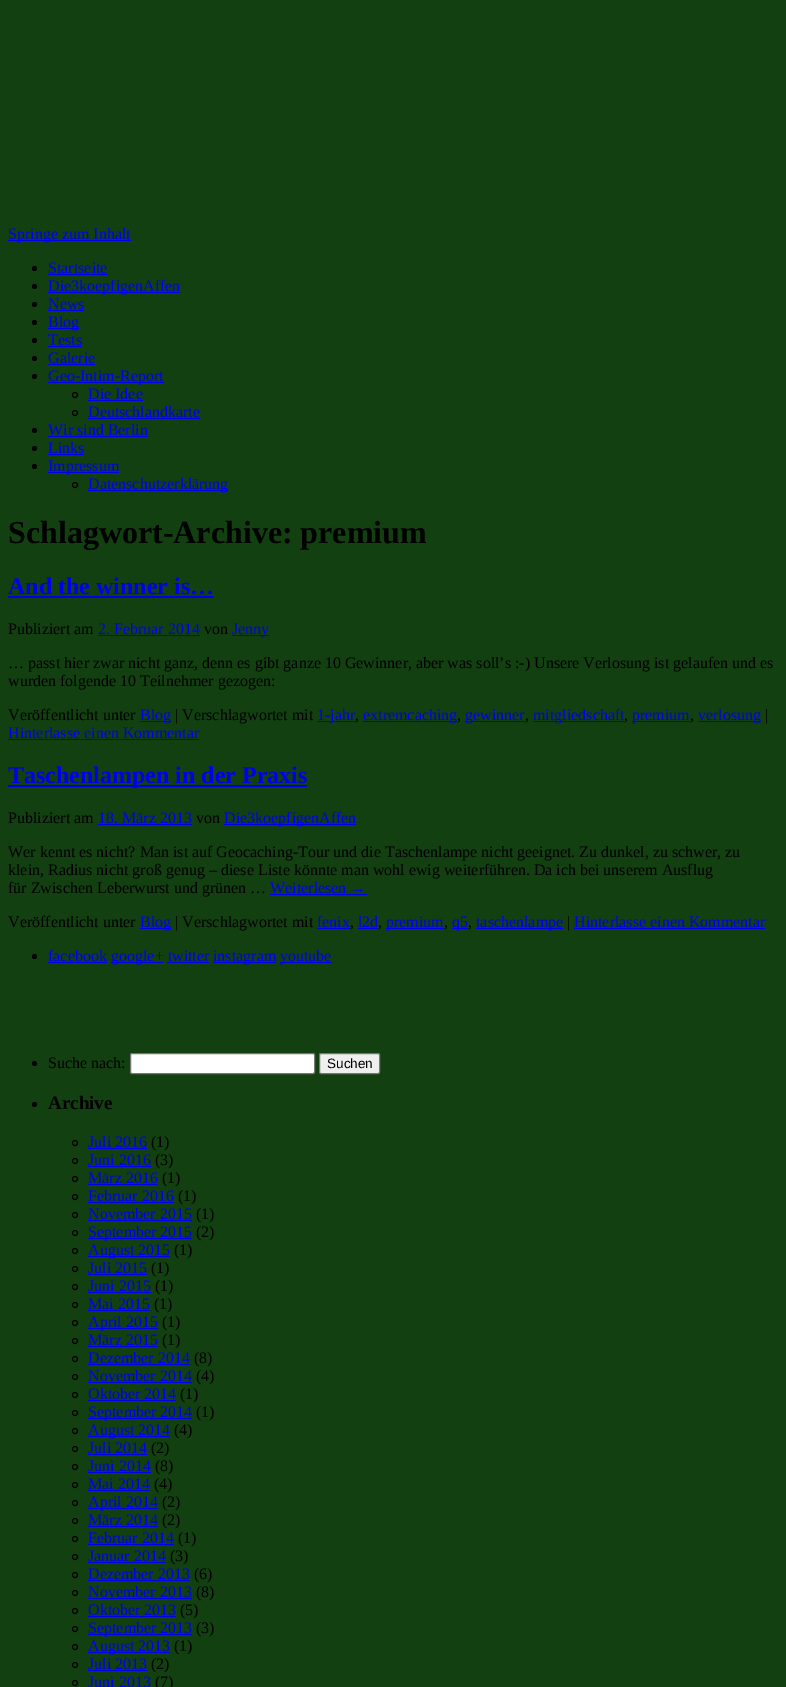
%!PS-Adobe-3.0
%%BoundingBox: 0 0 786 1687
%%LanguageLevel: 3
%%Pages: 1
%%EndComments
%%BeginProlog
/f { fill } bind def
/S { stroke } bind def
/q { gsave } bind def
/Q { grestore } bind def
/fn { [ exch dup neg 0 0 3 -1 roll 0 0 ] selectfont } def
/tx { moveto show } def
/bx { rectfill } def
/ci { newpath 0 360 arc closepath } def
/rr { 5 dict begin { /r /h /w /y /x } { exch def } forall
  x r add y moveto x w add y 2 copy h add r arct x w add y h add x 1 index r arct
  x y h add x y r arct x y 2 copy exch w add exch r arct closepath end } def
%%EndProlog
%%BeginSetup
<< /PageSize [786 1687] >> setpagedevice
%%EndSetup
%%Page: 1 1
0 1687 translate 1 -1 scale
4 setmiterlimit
0.071 0.251 0.067 setrgbcolor
0 0 786 1687 bx
0 0 0.933 setrgbcolor
8 240 123 1 bx
/LiberationSerif-Regular 16 fn
(Springe zum Inhalt) 8 239 tx
0 setgray
34.5 268.5 2.5 ci f
0 0 0.933 setrgbcolor
(Startseite) 48 273 tx
48 274 60 1 bx
0 setgray
34.5 286.5 2.5 ci f
0 0 0.933 setrgbcolor
48 292 132 1 bx
(Die3koepfigenAffen) 48 291 tx
0 setgray
34.5 304.5 2.5 ci f
0 0 0.933 setrgbcolor
(News) 48 309 tx
48 310 36 1 bx
0 setgray
34.5 322.5 2.5 ci f
0 0 0.933 setrgbcolor
48 328 31 1 bx
(Blog) 48 327 tx
0 setgray
34.5 340.5 2.5 ci f
0 0 0.933 setrgbcolor
(Tests) 48 345 tx
48 346 34 1 bx
0 setgray
34.5 358.5 2.5 ci f
0 0 0.933 setrgbcolor
(Galerie) 48 363 tx
48 364 47 1 bx
0 setgray
34.5 376.5 2.5 ci f
0 0 0.933 setrgbcolor
48 382 116 1 bx
(Geo-Intim-Report) 48 381 tx
0 setgray
75 395 2.5 ci S
0 0 0.933 setrgbcolor
(Die Idee) 88 399 tx
88 400 55 1 bx
0 setgray
75 413 2.5 ci S
0 0 0.933 setrgbcolor
(Deutschlandkarte) 88 417 tx
88 418 112 1 bx
0 setgray
34.5 430.5 2.5 ci f
0 0 0.933 setrgbcolor
(Wir sind Berlin) 48 435 tx
48 436 100 1 bx
0 setgray
34.5 448.5 2.5 ci f
0 0 0.933 setrgbcolor
(Links) 48 453 tx
48 454 36 1 bx
0 setgray
34.5 466.5 2.5 ci f
0 0 0.933 setrgbcolor
48 472 71 1 bx
(Impressum) 48 471 tx
0 setgray
75 485 2.5 ci S
0 0 0.933 setrgbcolor
88 490 140 1 bx
(Datenschutzerklärung) 88 489 tx
/LiberationSerif-Bold 32 fn
0 setgray
(Schlagwort-Archive: premium) 8 543 tx
/LiberationSerif-Bold 24 fn
0 0 0.933 setrgbcolor
(And the winner is…) 8 594 tx
8 596 206 2 bx
/LiberationSerif-Regular 16 fn
0 setgray
(Publiziert am) 8 634 tx
0 0 0.933 setrgbcolor
(2. Februar 2014) 98 634 tx
98 635 102 1 bx
0 setgray
(von) 204 634 tx
0 0 0.933 setrgbcolor
232 635 37 1 bx
(Jenny) 232 634 tx
0 setgray
(… passt hier zwar nicht ganz, denn es gibt ganze 10 Gewinner, aber was soll’s :-\) Unsere Verlosung ist gelaufen und es) 8 668 tx
(wurden folgende 10 Teilnehmer gezogen:) 8 686 tx
(Veröffentlicht unter) 8 720 tx
0 0 0.933 setrgbcolor
140 721 31 1 bx
(Blog) 140 720 tx
0 setgray
(| Verschlagwortet mit) 175 720 tx
0 0 0.933 setrgbcolor
317 721 38 1 bx
(1-jahr) 317 720 tx
0 setgray
(,) 355 720 tx
0 0 0.933 setrgbcolor
363 721 94 1 bx
(extremcaching) 363 720 tx
0 setgray
(,) 457 720 tx
0 0 0.933 setrgbcolor
465 721 60 1 bx
(gewinner) 465 720 tx
0 setgray
(,) 525 720 tx
0 0 0.933 setrgbcolor
533 721 91 1 bx
(mitgliedschaft) 533 720 tx
0 setgray
(,) 624 720 tx
0 0 0.933 setrgbcolor
632 721 58 1 bx
(premium) 632 720 tx
0 setgray
(,) 690 720 tx
0 0 0.933 setrgbcolor
698 721 63 1 bx
(verlosung) 698 720 tx
0 setgray
(|) 765 720 tx
0 0 0.933 setrgbcolor
(Hinterlasse einen Kommentar) 8 738 tx
8 739 191 1 bx
8 785 299 2 bx
/LiberationSerif-Bold 24 fn
(Taschenlampen in der Praxis) 8 783 tx
/LiberationSerif-Regular 16 fn
0 setgray
(Publiziert am) 8 823 tx
0 0 0.933 setrgbcolor
(18. März 2013) 98 823 tx
98 824 94 1 bx
0 setgray
(von) 196 823 tx
0 0 0.933 setrgbcolor
224 824 132 1 bx
(Die3koepfigenAffen) 224 823 tx
0 setgray
(Wer kennt es nicht? Man ist auf Geocaching-Tour und die Taschenlampe nicht geeignet. Zu dunkel, zu schwer, zu) 8 857 tx
(klein, Radius nicht groß genug – diese Liste könnte man wohl ewig weiterführen. Da ich bei unserem Ausflug) 8 875 tx
(für Zwischen Leberwurst und grünen …) 8 893 tx
0 0 0.933 setrgbcolor
(Weiterlesen →) 270 893 tx
270 894 97 1 bx
0 setgray
(Veröffentlicht unter) 8 927 tx
0 0 0.933 setrgbcolor
140 928 31 1 bx
(Blog) 140 927 tx
0 setgray
(| Verschlagwortet mit) 175 927 tx
0 0 0.933 setrgbcolor
(fenix) 317 927 tx
0 setgray
(,) 350 927 tx
0 0 0.933 setrgbcolor
317 928 33 1 bx
(l2d) 358 927 tx
0 setgray
(,) 378 927 tx
0 0 0.933 setrgbcolor
358 928 20 1 bx
386 928 58 1 bx
(premium) 386 927 tx
0 setgray
(,) 444 927 tx
0 0 0.933 setrgbcolor
452 928 16 1 bx
(q5) 452 927 tx
0 setgray
(,) 468 927 tx
0 0 0.933 setrgbcolor
476 928 87 1 bx
(taschenlampe) 476 927 tx
0 setgray
(|) 567 927 tx
0 0 0.933 setrgbcolor
(Hinterlasse einen Kommentar) 574 927 tx
574 928 191 1 bx
0 setgray
34.5 956.5 2.5 ci f
0 0 0.933 setrgbcolor
(facebook) 48 961 tx
48 962 59 1 bx
111 962 52 1 bx
(google+ twitter) 111 961 tx
167 962 42 1 bx
213 962 63 1 bx
(instagram) 213 961 tx
280 962 52 1 bx
(youtube) 280 961 tx
0 setgray
34.5 1063.5 2.5 ci f
(Suche nach:) 48 1068 tx
1 setgray
130.5 1053.5 184 20 1.5 rr q f Q
0.463 setgray
S
0.937 setgray
319.5 1053.5 60 20 1.5 rr q f Q
0.463 setgray
S
/LiberationSans-Regular 13.5 fn
0 setgray
(Suchen) 327 1068 tx
34.5 1104.5 2.5 ci f
/LiberationSerif-Bold 19 fn
(Archive) 48 1109 tx
75 1143 2.5 ci S
/LiberationSerif-Regular 16 fn
0 0 0.933 setrgbcolor
(Juli 2016) 88 1147 tx
88 1148 59 1 bx
0 setgray
(\(1\)) 151 1147 tx
75 1161 2.5 ci S
0 0 0.933 setrgbcolor
(Juni 2016) 88 1165 tx
88 1166 63 1 bx
0 setgray
(\(3\)) 155 1165 tx
75 1179 2.5 ci S
0 0 0.933 setrgbcolor
(März 2016) 88 1183 tx
88 1184 70 1 bx
0 setgray
(\(1\)) 162 1183 tx
75 1197 2.5 ci S
0 0 0.933 setrgbcolor
(Februar 2016) 88 1201 tx
88 1202 86 1 bx
0 setgray
(\(1\)) 178 1201 tx
75 1215 2.5 ci S
0 0 0.933 setrgbcolor
(November 2015) 88 1219 tx
88 1220 104 1 bx
0 setgray
(\(1\)) 196 1219 tx
75 1233 2.5 ci S
0 0 0.933 setrgbcolor
88 1238 104 1 bx
(September 2015) 88 1237 tx
0 setgray
(\(2\)) 196 1237 tx
75 1251 2.5 ci S
0 0 0.933 setrgbcolor
88 1256 82 1 bx
(August 2015) 88 1255 tx
0 setgray
(\(1\)) 174 1255 tx
75 1269 2.5 ci S
0 0 0.933 setrgbcolor
(Juli 2015) 88 1273 tx
88 1274 59 1 bx
0 setgray
(\(1\)) 151 1273 tx
75 1287 2.5 ci S
0 0 0.933 setrgbcolor
(Juni 2015) 88 1291 tx
88 1292 63 1 bx
0 setgray
(\(1\)) 155 1291 tx
75 1305 2.5 ci S
0 0 0.933 setrgbcolor
(Mai 2015) 88 1309 tx
88 1310 62 1 bx
0 setgray
(\(1\)) 154 1309 tx
75 1323 2.5 ci S
0 0 0.933 setrgbcolor
88 1328 70 1 bx
(April 2015) 88 1327 tx
0 setgray
(\(1\)) 162 1327 tx
75 1341 2.5 ci S
0 0 0.933 setrgbcolor
(März 2015) 88 1345 tx
88 1346 70 1 bx
0 setgray
(\(1\)) 162 1345 tx
75 1359 2.5 ci S
0 0 0.933 setrgbcolor
(Dezember 2014) 88 1363 tx
88 1364 102 1 bx
0 setgray
(\(8\)) 194 1363 tx
75 1377 2.5 ci S
0 0 0.933 setrgbcolor
(November 2014) 88 1381 tx
88 1382 104 1 bx
0 setgray
(\(4\)) 196 1381 tx
75 1395 2.5 ci S
0 0 0.933 setrgbcolor
(Oktober 2014) 88 1399 tx
88 1400 88 1 bx
0 setgray
(\(1\)) 180 1399 tx
75 1413 2.5 ci S
0 0 0.933 setrgbcolor
88 1418 104 1 bx
(September 2014) 88 1417 tx
0 setgray
(\(1\)) 196 1417 tx
75 1431 2.5 ci S
0 0 0.933 setrgbcolor
88 1436 82 1 bx
(August 2014) 88 1435 tx
0 setgray
(\(4\)) 174 1435 tx
75 1449 2.5 ci S
0 0 0.933 setrgbcolor
(Juli 2014) 88 1453 tx
88 1454 59 1 bx
0 setgray
(\(2\)) 151 1453 tx
75 1467 2.5 ci S
0 0 0.933 setrgbcolor
(Juni 2014) 88 1471 tx
88 1472 63 1 bx
0 setgray
(\(8\)) 155 1471 tx
75 1485 2.5 ci S
0 0 0.933 setrgbcolor
(Mai 2014) 88 1489 tx
88 1490 62 1 bx
0 setgray
(\(4\)) 154 1489 tx
75 1503 2.5 ci S
0 0 0.933 setrgbcolor
88 1508 70 1 bx
(April 2014) 88 1507 tx
0 setgray
(\(2\)) 162 1507 tx
75 1521 2.5 ci S
0 0 0.933 setrgbcolor
(März 2014) 88 1525 tx
88 1526 70 1 bx
0 setgray
(\(2\)) 162 1525 tx
75 1539 2.5 ci S
0 0 0.933 setrgbcolor
(Februar 2014) 88 1543 tx
88 1544 86 1 bx
0 setgray
(\(1\)) 178 1543 tx
75 1557 2.5 ci S
0 0 0.933 setrgbcolor
(Januar 2014) 88 1561 tx
88 1562 78 1 bx
0 setgray
(\(3\)) 170 1561 tx
75 1575 2.5 ci S
0 0 0.933 setrgbcolor
(Dezember 2013) 88 1579 tx
88 1580 102 1 bx
0 setgray
(\(6\)) 194 1579 tx
75 1593 2.5 ci S
0 0 0.933 setrgbcolor
(November 2013) 88 1597 tx
88 1598 104 1 bx
0 setgray
(\(8\)) 196 1597 tx
75 1611 2.5 ci S
0 0 0.933 setrgbcolor
(Oktober 2013) 88 1615 tx
88 1616 88 1 bx
0 setgray
(\(5\)) 180 1615 tx
75 1629 2.5 ci S
0 0 0.933 setrgbcolor
88 1634 104 1 bx
(September 2013) 88 1633 tx
0 setgray
(\(3\)) 196 1633 tx
75 1647 2.5 ci S
0 0 0.933 setrgbcolor
88 1652 82 1 bx
(August 2013) 88 1651 tx
0 setgray
(\(1\)) 174 1651 tx
75 1665 2.5 ci S
0 0 0.933 setrgbcolor
(Juli 2013) 88 1669 tx
88 1670 59 1 bx
0 setgray
(\(2\)) 151 1669 tx
75 1683 2.5 ci S
0 0 0.933 setrgbcolor
(Juni 2013) 88 1687 tx
0 setgray
(\(7\)) 155 1687 tx
showpage
%%EOF
